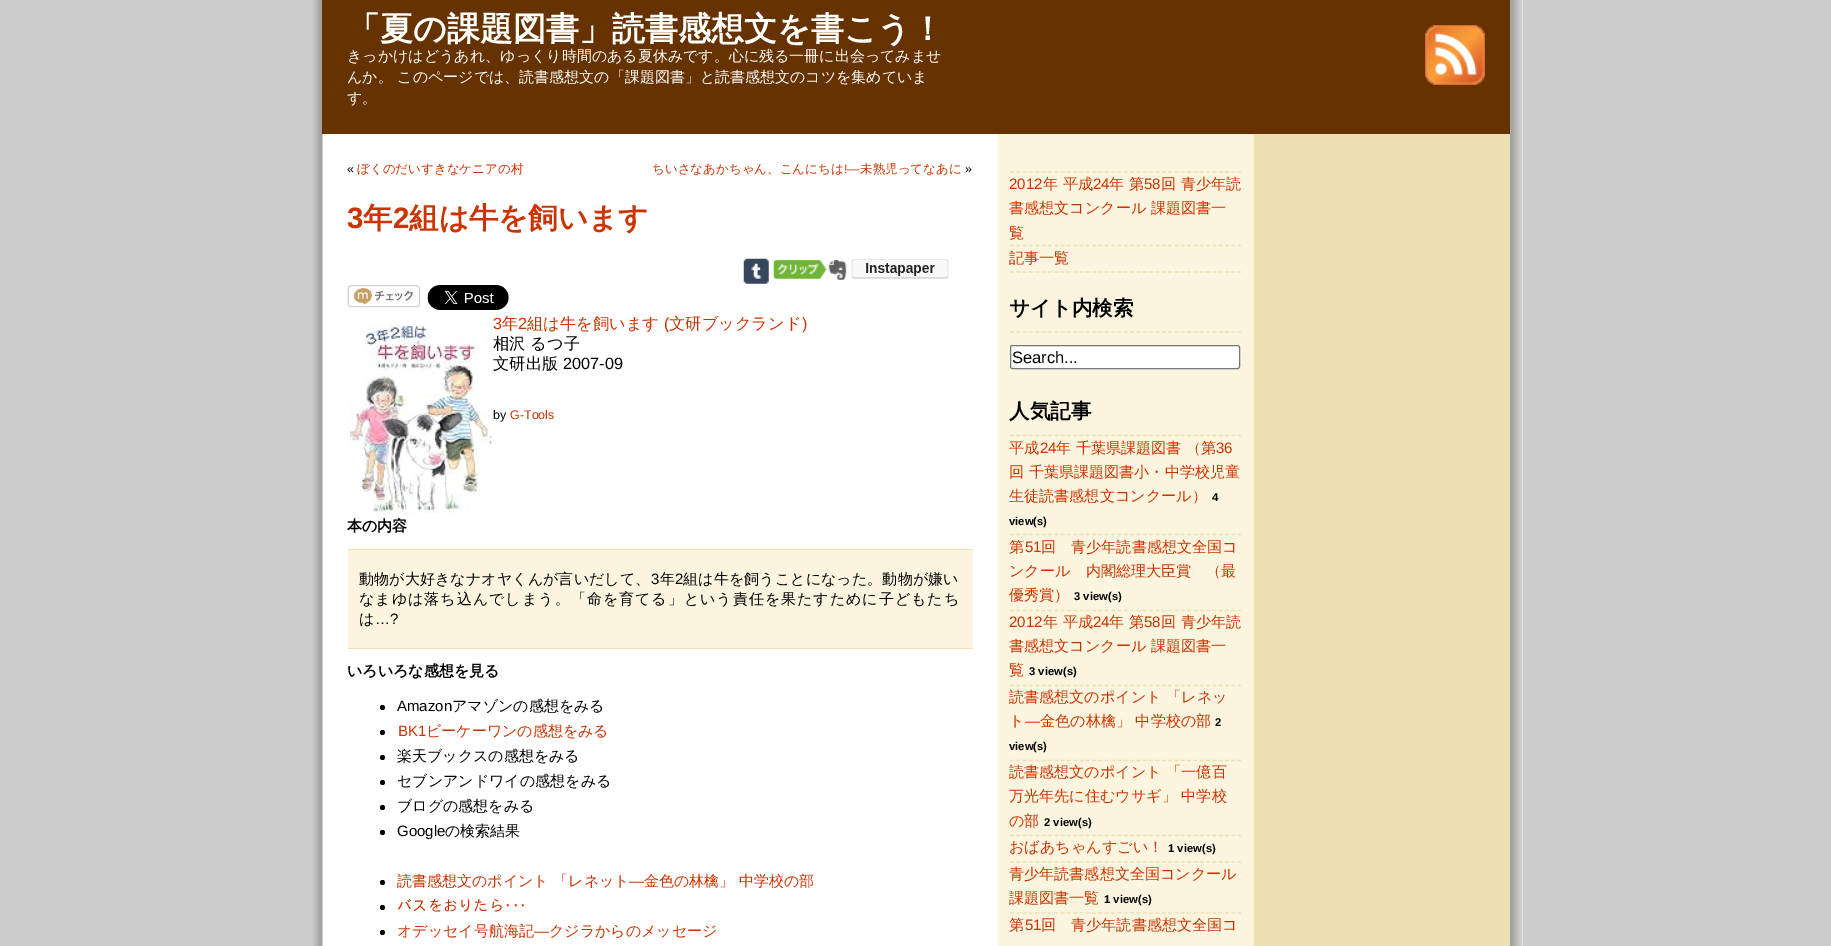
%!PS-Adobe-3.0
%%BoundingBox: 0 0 1831 946
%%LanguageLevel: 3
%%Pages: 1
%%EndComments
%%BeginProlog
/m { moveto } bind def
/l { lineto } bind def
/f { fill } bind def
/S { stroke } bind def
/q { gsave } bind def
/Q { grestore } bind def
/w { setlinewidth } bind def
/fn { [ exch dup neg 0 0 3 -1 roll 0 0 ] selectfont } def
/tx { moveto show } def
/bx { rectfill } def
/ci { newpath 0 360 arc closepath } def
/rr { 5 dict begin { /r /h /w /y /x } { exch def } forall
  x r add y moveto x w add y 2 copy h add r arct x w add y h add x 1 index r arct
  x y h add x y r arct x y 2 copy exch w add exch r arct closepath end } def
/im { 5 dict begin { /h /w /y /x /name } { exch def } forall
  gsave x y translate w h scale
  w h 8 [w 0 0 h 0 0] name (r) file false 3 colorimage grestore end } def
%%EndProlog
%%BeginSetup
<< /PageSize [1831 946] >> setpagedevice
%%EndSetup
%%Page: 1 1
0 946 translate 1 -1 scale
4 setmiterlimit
0.8 setgray
0 0 1831 946 bx
1 setgray
1522 0 1 946 bx
(image0.raw) 310 0 1213 946 im
0.4 0.196 0 setrgbcolor
322 0 1188 134 bx
/WenQuanYiZenHei-Bold 33 fn
1 setgray
(「夏の課題図書」読書感想文を書こう！) 347 40 tx
/WenQuanYiZenHei-Medium 15 fn
(きっかけはどうあれ、ゆっくり時間のある夏休みです。心に残る一冊に出会ってみませ) 347 61 tx
(んか。 このページでは、読書感想文の「課題図書」と読書感想文のコツを集めていま) 347 82 tx
(す。) 347 103 tx
(image1.raw) 1425 25 60 60 im
/LiberationSans-Regular 12.5 fn
0 setgray
(«) 347 173 tx
/WenQuanYiZenHei-Medium 12.5 fn
0.8 0.2 0 setrgbcolor
(ぼくのだいすきなケニアの村) 357 173 tx
(ちいさなあかちゃん、こんにちは) 652 173 tx
/LiberationSans-Regular 12.5 fn
(!―) 844 173 tx
/WenQuanYiZenHei-Medium 12.5 fn
(未熟児ってなあに) 860 173 tx
/LiberationSans-Regular 12.5 fn
0 setgray
(») 965 173 tx
/LiberationSans-Bold 29.5 fn
0.8 0.2 0 setrgbcolor
(3) 347 228 tx
/WenQuanYiZenHei-Bold 29.5 fn
(年) 363 228 tx
/LiberationSans-Bold 29.5 fn
(2) 393 228 tx
/WenQuanYiZenHei-Bold 29.5 fn
(組は牛を飼います) 409 228 tx
(image2.raw) 743 258 26 26 im
(image3.raw) 773 259 74 21 im
(image4.raw) 851 259 98 20 im
(image5.raw) 347 285 73 23 im
(image6.raw) 427 285 82 25 im
(image7.raw) 350 318 142 196 im
/LiberationSans-Regular 16.25 fn
(3) 493 329 tx
/WenQuanYiZenHei-Medium 16.25 fn
(年) 502 329 tx
/LiberationSans-Regular 16.25 fn
(2) 518 329 tx
/WenQuanYiZenHei-Medium 16.25 fn
(組は牛を飼います) 527 329 tx
/LiberationSans-Regular 16.25 fn
(\() 664 329 tx
/WenQuanYiZenHei-Medium 16.25 fn
(文研ブックランド) 669 329 tx
/LiberationSans-Regular 16.25 fn
(\)) 802 329 tx
/WenQuanYiZenHei-Medium 16.25 fn
0 setgray
(相沢 るつ子) 493 349 tx
(文研出版) 493 369 tx
/LiberationSans-Regular 16.25 fn
(2007-09) 563 369 tx
/LiberationSans-Regular 12.5 fn
(by) 493 419 tx
0.8 0.2 0 setrgbcolor
(G-Tools) 510 419 tx
/WenQuanYiZenHei-Bold 15 fn
0 setgray
(本の内容) 347 531 tx
0.984 0.961 0.875 setrgbcolor
348 550 625 98 bx
0.929 0.878 0.702 setrgbcolor
348 549 625 1 bx
348 648 625 1 bx
/WenQuanYiZenHei-Medium 15 fn
0 setgray
359 584 m 0.1 0 (動物が大好きなナオヤくんが言いだして、) ashow
/LiberationSans-Regular 15 fn
651 584 m 0.1 0 (3) ashow
/WenQuanYiZenHei-Medium 15 fn
660 584 m 0.1 0 (年) ashow
/LiberationSans-Regular 15 fn
675 584 m 0.1 0 (2) ashow
/WenQuanYiZenHei-Medium 15 fn
683 584 m 0.1 0 (組は牛を飼うことになった。動物が嫌い) ashow
359 604 m 1 0 (なまゆは落ち込んでしまう。「命を育てる」という責任を果たすために子どもたち) ashow
(は) 359 624 tx
/LiberationSans-Regular 15 fn
(…?) 375 624 tx
/WenQuanYiZenHei-Bold 15 fn
(いろいろな感想を見る) 347 676 tx
382.5 707.5 2.5 ci f
/LiberationSans-Regular 15 fn
(Amazon) 397 711 tx
/WenQuanYiZenHei-Medium 15 fn
(アマゾンの感想をみる) 452 711 tx
382.5 732.5 2.5 ci f
/LiberationSans-Regular 15 fn
0.8 0.2 0 setrgbcolor
(BK1) 398 736 tx
/WenQuanYiZenHei-Medium 15 fn
(ビーケーワンの感想をみる) 426 736 tx
0 setgray
382.5 757.5 2.5 ci f
(楽天ブックスの感想をみる) 397 761 tx
382.5 782.5 2.5 ci f
(セブンアンドワイの感想をみる) 397 786 tx
382.5 807.5 2.5 ci f
(ブログの感想をみる) 397 811 tx
382.5 832.5 2.5 ci f
/LiberationSans-Regular 15 fn
(Google) 397 836 tx
/WenQuanYiZenHei-Medium 15 fn
(の検索結果) 445 836 tx
382.5 882.5 2.5 ci f
0.8 0.2 0 setrgbcolor
(読書感想文のポイント 「レネット) 397 886 tx
/LiberationSans-Regular 15 fn
(―) 629 886 tx
/WenQuanYiZenHei-Medium 15 fn
(金色の林檎」 中学校の部) 644 886 tx
0 setgray
382.5 907.5 2.5 ci f
/IPAGothic-Regular 15 fn
0.8 0.2 0 setrgbcolor
397 911 m 0.25 0 (バスをおりたら･･･) ashow
0 setgray
382.5 932.5 2.5 ci f
/WenQuanYiZenHei-Medium 15 fn
0.8 0.2 0 setrgbcolor
(オデッセイ号航海記) 397 936 tx
/LiberationSans-Regular 15 fn
(―) 534 936 tx
/WenQuanYiZenHei-Medium 15 fn
(クジラからのメッセージ) 549 936 tx
0.929 0.878 0.702 setrgbcolor
1.2 w
[3.75 2.58] 0 setdash
1010 172 m 1241 172 l S
1010 245.5 m 1241 245.5 l S
/LiberationSans-Regular 15.1 fn
0.8 0.2 0 setrgbcolor
(2012) 1009 189 tx
/WenQuanYiZenHei-Medium 15.1 fn
(年 平成) 1043 189 tx
/LiberationSans-Regular 15.1 fn
(24) 1093 189 tx
/WenQuanYiZenHei-Medium 15.1 fn
(年 第) 1109 189 tx
/LiberationSans-Regular 15.1 fn
(58) 1144 189 tx
/WenQuanYiZenHei-Medium 15.1 fn
(回 青少年読) 1161 189 tx
(書感想文コンクール 課題図書一) 1009 213 tx
(覧) 1009 238 tx
0.929 0.878 0.702 setrgbcolor
1010 272 m 1241 272 l S
0.8 0.2 0 setrgbcolor
(記事一覧) 1009 263 tx
0.929 0.878 0.702 setrgbcolor
1010 332 m 1241 332 l S
/WenQuanYiZenHei-Bold 20.5 fn
0 setgray
(サイト内検索) 1009 315 tx
1 setgray
1010.5 345.5 229 23 2 rr q f Q
0.463 setgray
1 w
[] 0 setdash
S
/LiberationSans-Regular 16.5 fn
0 setgray
(Search...) 1012 363 tx
0.929 0.878 0.702 setrgbcolor
1.2 w
[3.75 2.58] 0 setdash
1010 435.5 m 1241 435.5 l S
/WenQuanYiZenHei-Bold 20.5 fn
0 setgray
(人気記事) 1009 418 tx
0.929 0.878 0.702 setrgbcolor
1010 534.5 m 1241 534.5 l S
/WenQuanYiZenHei-Medium 15.1 fn
0.8 0.2 0 setrgbcolor
(平成) 1009 453 tx
/LiberationSans-Regular 15.1 fn
(24) 1040 453 tx
/WenQuanYiZenHei-Medium 15.1 fn
(年 千葉県課題図書 （第) 1056 453 tx
/LiberationSans-Regular 15.1 fn
(36) 1216 453 tx
/WenQuanYiZenHei-Medium 15.1 fn
(回 千葉県課題図書小・中学校児童) 1009 477 tx
(生徒読書感想文コンクール）) 1009 501 tx
/LiberationSans-Bold 11.25 fn
0 setgray
(4) 1212 501 tx
(view\(s\)) 1009 525 tx
0.929 0.878 0.702 setrgbcolor
1010 610.5 m 1241 610.5 l S
/WenQuanYiZenHei-Medium 15.1 fn
0.8 0.2 0 setrgbcolor
(第) 1009 552 tx
/LiberationSans-Regular 15.1 fn
(51) 1025 552 tx
/WenQuanYiZenHei-Medium 15.1 fn
(回　青少年読書感想文全国コ) 1041 552 tx
(ンクール　内閣総理大臣賞　（最) 1009 576 tx
(優秀賞）) 1009 600 tx
/LiberationSans-Bold 11.25 fn
0 setgray
(3 view\(s\)) 1074 600 tx
0.929 0.878 0.702 setrgbcolor
1010 685.5 m 1241 685.5 l S
/LiberationSans-Regular 15.1 fn
0.8 0.2 0 setrgbcolor
(2012) 1009 627 tx
/WenQuanYiZenHei-Medium 15.1 fn
(年 平成) 1043 627 tx
/LiberationSans-Regular 15.1 fn
(24) 1093 627 tx
/WenQuanYiZenHei-Medium 15.1 fn
(年 第) 1109 627 tx
/LiberationSans-Regular 15.1 fn
(58) 1144 627 tx
/WenQuanYiZenHei-Medium 15.1 fn
(回 青少年読) 1161 627 tx
(書感想文コンクール 課題図書一) 1009 651 tx
(覧) 1009 675 tx
/LiberationSans-Bold 11.25 fn
0 setgray
(3 view\(s\)) 1029 675 tx
0.929 0.878 0.702 setrgbcolor
1010 760.5 m 1241 760.5 l S
/WenQuanYiZenHei-Medium 15.1 fn
0.8 0.2 0 setrgbcolor
(読書感想文のポイント 「レネッ) 1009 702 tx
(ト) 1009 726 tx
/LiberationSans-Regular 15.1 fn
(―) 1025 726 tx
/WenQuanYiZenHei-Medium 15.1 fn
(金色の林檎」 中学校の部) 1040 726 tx
/LiberationSans-Bold 11.25 fn
0 setgray
(2) 1215 726 tx
(view\(s\)) 1009 750 tx
0.929 0.878 0.702 setrgbcolor
1010 835.5 m 1241 835.5 l S
/WenQuanYiZenHei-Medium 15.1 fn
0.8 0.2 0 setrgbcolor
(読書感想文のポイント 「一億百) 1009 777 tx
(万光年先に住むウサギ」 中学校) 1009 801 tx
(の部) 1009 826 tx
/LiberationSans-Bold 11.25 fn
0 setgray
(2 view\(s\)) 1044 826 tx
0.929 0.878 0.702 setrgbcolor
1010 862 m 1241 862 l S
/WenQuanYiZenHei-Medium 15.1 fn
0.8 0.2 0 setrgbcolor
(おばあちゃんすごい！) 1009 852 tx
/LiberationSans-Bold 11.25 fn
0 setgray
(1 view\(s\)) 1168 852 tx
0.929 0.878 0.702 setrgbcolor
1010 913 m 1241 913 l S
/WenQuanYiZenHei-Medium 15.1 fn
0.8 0.2 0 setrgbcolor
(青少年読書感想文全国コンクール) 1009 879 tx
(課題図書一覧) 1009 903 tx
/LiberationSans-Bold 11.25 fn
0 setgray
(1 view\(s\)) 1104 903 tx
/WenQuanYiZenHei-Medium 15.1 fn
0.8 0.2 0 setrgbcolor
(第) 1009 930 tx
/LiberationSans-Regular 15.1 fn
(51) 1025 930 tx
/WenQuanYiZenHei-Medium 15.1 fn
(回　青少年読書感想文全国コ) 1041 930 tx
showpage
%%EOF
